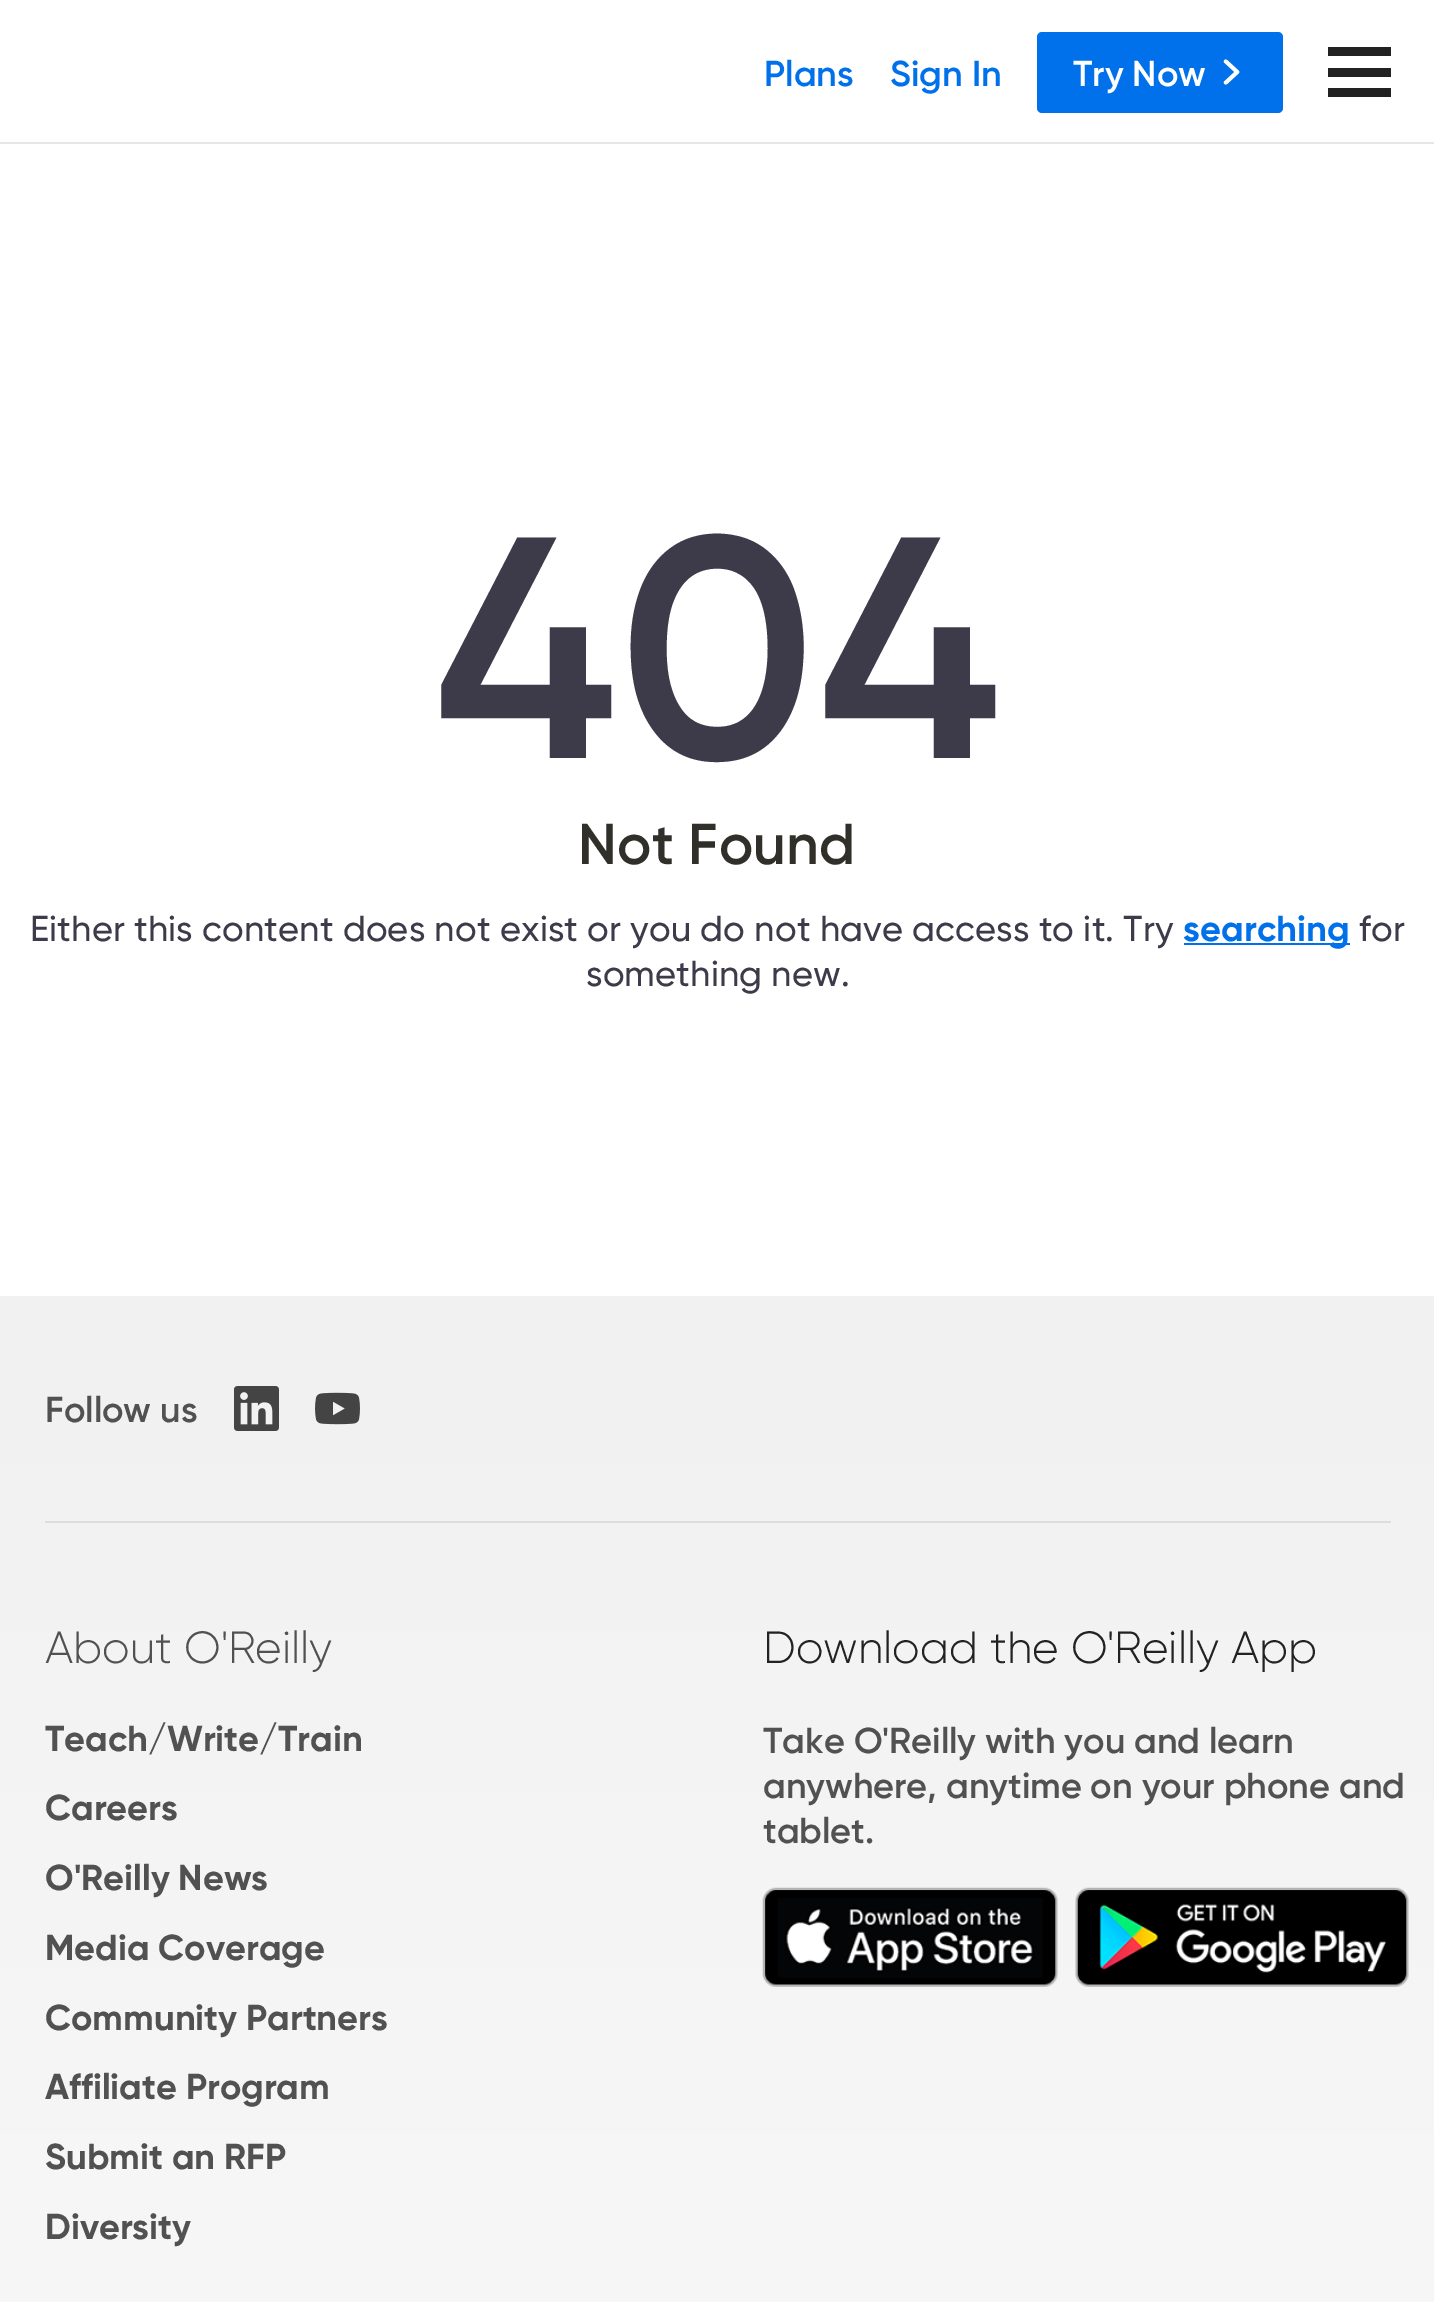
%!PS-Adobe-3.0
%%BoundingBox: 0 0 1434 2302
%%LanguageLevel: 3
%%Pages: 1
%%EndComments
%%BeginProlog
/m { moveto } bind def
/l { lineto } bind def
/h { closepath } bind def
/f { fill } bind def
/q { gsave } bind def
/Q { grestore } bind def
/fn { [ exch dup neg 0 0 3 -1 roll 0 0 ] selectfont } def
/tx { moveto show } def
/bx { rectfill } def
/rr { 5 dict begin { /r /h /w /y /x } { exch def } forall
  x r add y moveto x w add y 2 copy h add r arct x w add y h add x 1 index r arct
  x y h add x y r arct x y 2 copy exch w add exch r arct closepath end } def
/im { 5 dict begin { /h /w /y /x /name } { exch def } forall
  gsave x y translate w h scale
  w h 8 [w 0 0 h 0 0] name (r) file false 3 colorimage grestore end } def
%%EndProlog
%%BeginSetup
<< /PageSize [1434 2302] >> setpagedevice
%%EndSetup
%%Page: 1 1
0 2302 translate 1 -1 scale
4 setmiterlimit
1 setgray
0 0 1434 2302 bx
0.902 setgray
0 142 1434 2 bx
/Gilroy-SemiBold 36 fn
0 0.443 0.922 setrgbcolor
(Plans) 764 86 tx
(Sign In) 890 86 tx
1037 32 246 81 5 rr f
1 setgray
(Try Now) 1073 86 tx
(image0.raw) 1223 59 17 26 im
0.133 setgray
1328 68 63 9 bx
1328 47 63 9 bx
1328 88 63 9 bx
/Gilroy-SemiBold 315 fn
0.239 0.231 0.286 setrgbcolor
434 758 m 1.5 0 (404) ashow
/Gilroy-SemiBold 57.5 fn
0.188 0.184 0.165 setrgbcolor
578 864 m 0.25 0 (Not Found) ashow
/Gilroy-Medium 36 fn
0.239 0.231 0.286 setrgbcolor
30 941 m 0.18 0 (Either this content does not exist or you do not have access to it. Try) ashow
0 0.443 0.922 setrgbcolor
1184 943 166 2 bx
/Gilroy-Bold 36 fn
1183 941 m 0.18 0 (searching) ashow
/Gilroy-Medium 36 fn
0.239 0.231 0.286 setrgbcolor
1359 941 m 0.18 0 (for) ashow
586 986 m 0.18 0 (something new.) ashow
q 0 1296 m 1434 1296 l 1434 2302 l 0 2302 l h clip newpath
<< /ShadingType 2 /ColorSpace /DeviceRGB /Coords [718 1296 718 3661] /Extend [true true] /Function << /FunctionType 2 /Domain [0 1] /C0 [0.945 0.945 0.945] /C1 [1 1 1] /N 1 >> >> shfill Q
0.867 setgray
45 1521 1346 2 bx
/Gilroy-SemiBold 36 fn
0.318 setgray
(Follow us) 45 1422 tx
(image1.raw) 234 1386 45 45 im
(image2.raw) 315 1392 45 33 im
/Gilroy-Light 45 fn
(About O'Reilly) 45 1663 tx
/Gilroy-Bold 36 fn
(Teach/Write/Train) 45 1751 tx
(Careers) 45 1820 tx
(O'Reilly News) 45 1890 tx
(Media Coverage) 45 1960 tx
(Community Partners) 45 2030 tx
(Affiliate Program) 45 2099 tx
(Submit an RFP) 45 2169 tx
(Diversity) 45 2239 tx
/Gilroy-Light 45 fn
0.133 setgray
(Download the O'Reilly App) 763 1663 tx
/Gilroy-SemiBold 36 fn
0.318 setgray
(Take O'Reilly with you and learn) 763 1753 tx
(anywhere, anytime on your phone and) 763 1798 tx
(tablet.) 763 1843 tx
(image3.raw) 762 1887 296 100 im
(image4.raw) 1075 1887 334 100 im
showpage
%%EOF
